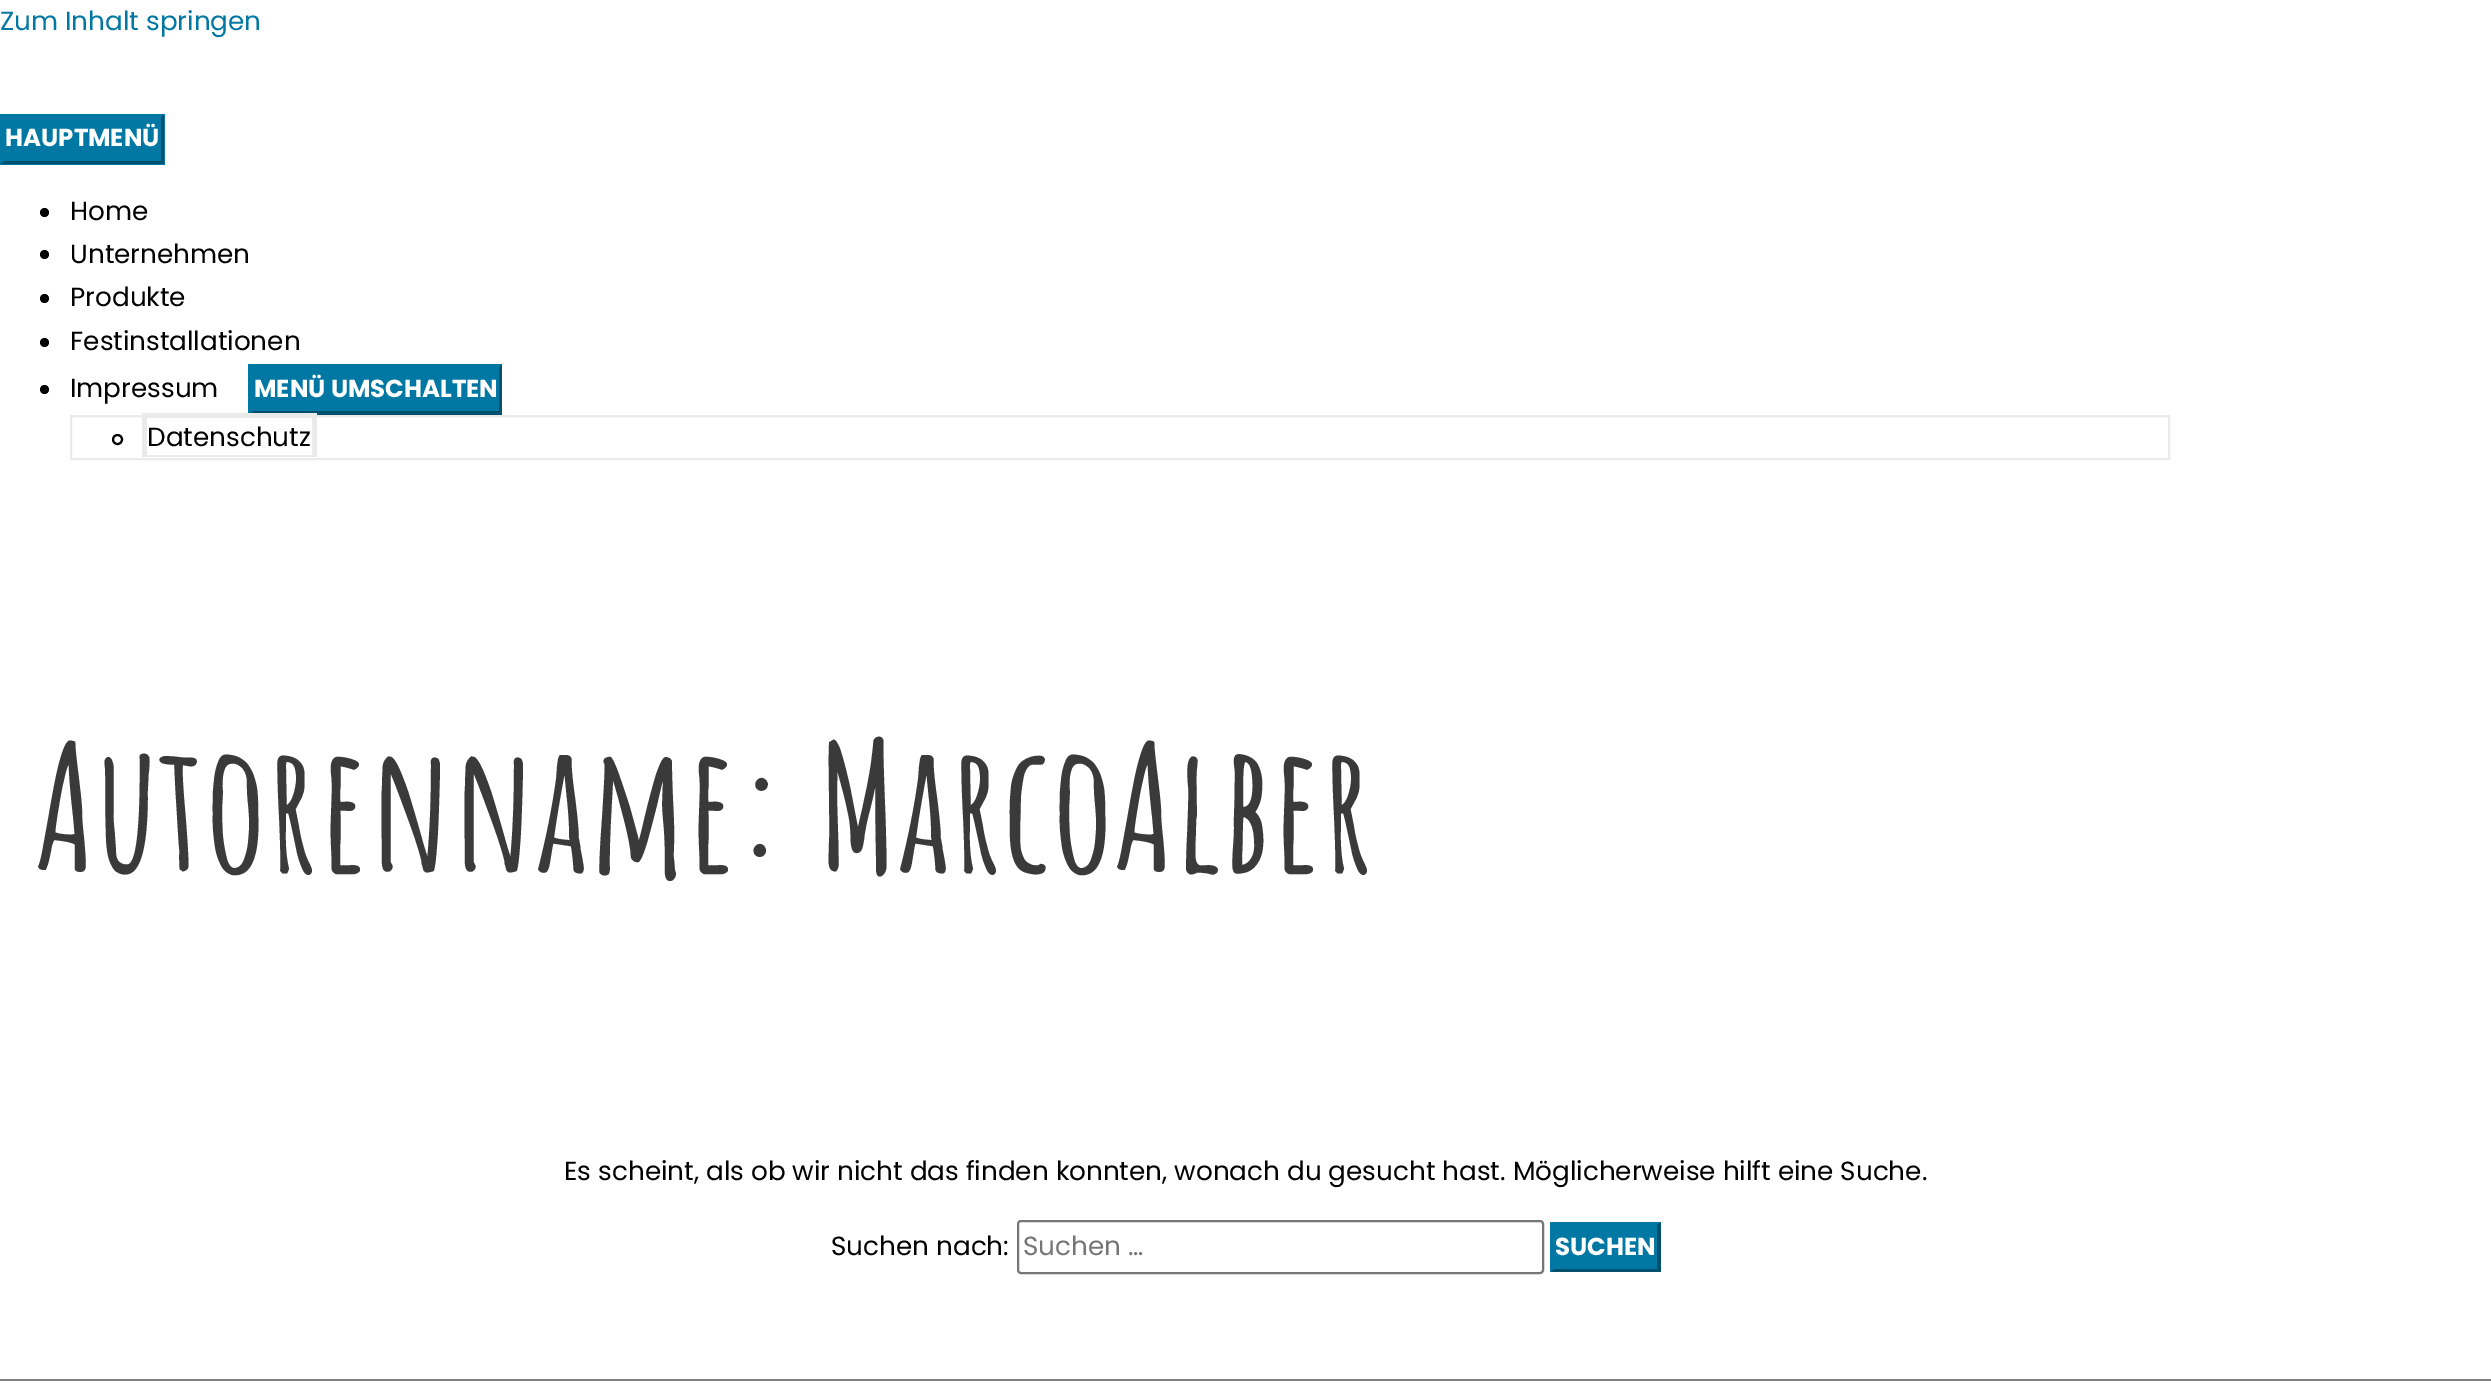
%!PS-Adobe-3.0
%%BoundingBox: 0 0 2491 1399
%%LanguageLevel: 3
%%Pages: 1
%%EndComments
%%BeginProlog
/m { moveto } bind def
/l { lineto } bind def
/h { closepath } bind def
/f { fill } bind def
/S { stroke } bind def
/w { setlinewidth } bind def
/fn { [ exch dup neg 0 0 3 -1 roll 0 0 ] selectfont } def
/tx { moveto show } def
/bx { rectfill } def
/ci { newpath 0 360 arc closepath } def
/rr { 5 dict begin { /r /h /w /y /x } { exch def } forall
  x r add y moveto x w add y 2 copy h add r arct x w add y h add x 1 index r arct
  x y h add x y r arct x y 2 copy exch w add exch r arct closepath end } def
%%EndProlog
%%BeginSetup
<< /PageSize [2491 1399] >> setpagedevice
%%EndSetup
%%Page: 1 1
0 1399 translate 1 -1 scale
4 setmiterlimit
1 setgray
0 0 2491 1399 bx
/Poppins-Regular 26.25 fn
0.004 0.471 0.639 setrgbcolor
(Zum Inhalt springen) 0 30 tx
0 114 165 51 bx
0.004 0.314 0.427 setrgbcolor
164 114 m 164 164 l 161 161 l 161 117 l h f
164 164 m 0 164 l 4 161 l 161 161 l h f
0.004 0.471 0.639 setrgbcolor
0 164 m 0 114 l 4 117 l 4 161 l h f
/Poppins-Bold 24.5 fn
1 setgray
(HAUPTMENÜ) 5 146 tx
0 setgray
44.5 212.5 4.5 ci f
/Poppins-Regular 26.25 fn
(Home) 70 220 tx
44.5 254.5 4.5 ci f
(Unternehmen) 70 263 tx
44.5 298.5 4.5 ci f
(Produkte) 70 306 tx
44.5 342.5 4.5 ci f
(Festinstallationen) 70 350 tx
44.5 389.5 4.5 ci f
(Impressum) 70 397 tx
0.004 0.471 0.639 setrgbcolor
249 364 253 51 bx
248 364 m 502 364 l 499 368 l 252 368 l h f
0.004 0.314 0.427 setrgbcolor
502 364 m 502 415 l 499 411 l 499 368 l h f
502 415 m 248 415 l 252 411 l 499 411 l h f
0.004 0.471 0.639 setrgbcolor
248 415 m 248 364 l 252 368 l 252 411 l h f
/Poppins-Bold 24.5 fn
1 setgray
(MENÜ UMSCHALTEN) 254 397 tx
0.918 setgray
2 w
71 416 2098 43 rectstroke
0 setgray
117.5 439.5 4.5 ci S
/Poppins-Regular 26.25 fn
(Datenschutz) 147 446 tx
0.918 setgray
142 413 175 5 bx
312 413 5 44 bx
142 455 175 2 bx
142 413 5 44 bx
/AmaticSC-Bold 175 fn
0.227 setgray
(Autorenname: MarcoAlber) 35 872 tx
/Poppins-Regular 26.25 fn
0 setgray
(Es scheint, als ob wir nicht das finden konnten, wonach du gesucht hast. Möglicherweise hilft eine Suche.) 564 1180 tx
(Suchen nach:) 831 1255 tx
0.463 setgray
1018 1221 525 52 3 rr S
0.459 setgray
(Suchen …) 1023 1255 tx
0.004 0.471 0.639 setrgbcolor
1551 1222 110 50 bx
1550 1222 m 1661 1222 l 1657 1225 l 1554 1225 l h f
0.004 0.314 0.427 setrgbcolor
1661 1222 m 1661 1272 l 1657 1269 l 1657 1225 l h f
1661 1272 m 1550 1272 l 1554 1269 l 1657 1269 l h f
0.004 0.471 0.639 setrgbcolor
1550 1272 m 1550 1222 l 1554 1225 l 1554 1269 l h f
/Poppins-Bold 24.5 fn
1 setgray
(SUCHEN) 1555 1255 tx
0.486 0.498 0.529 setrgbcolor
0 1379 2491 2 bx
showpage
%%EOF
